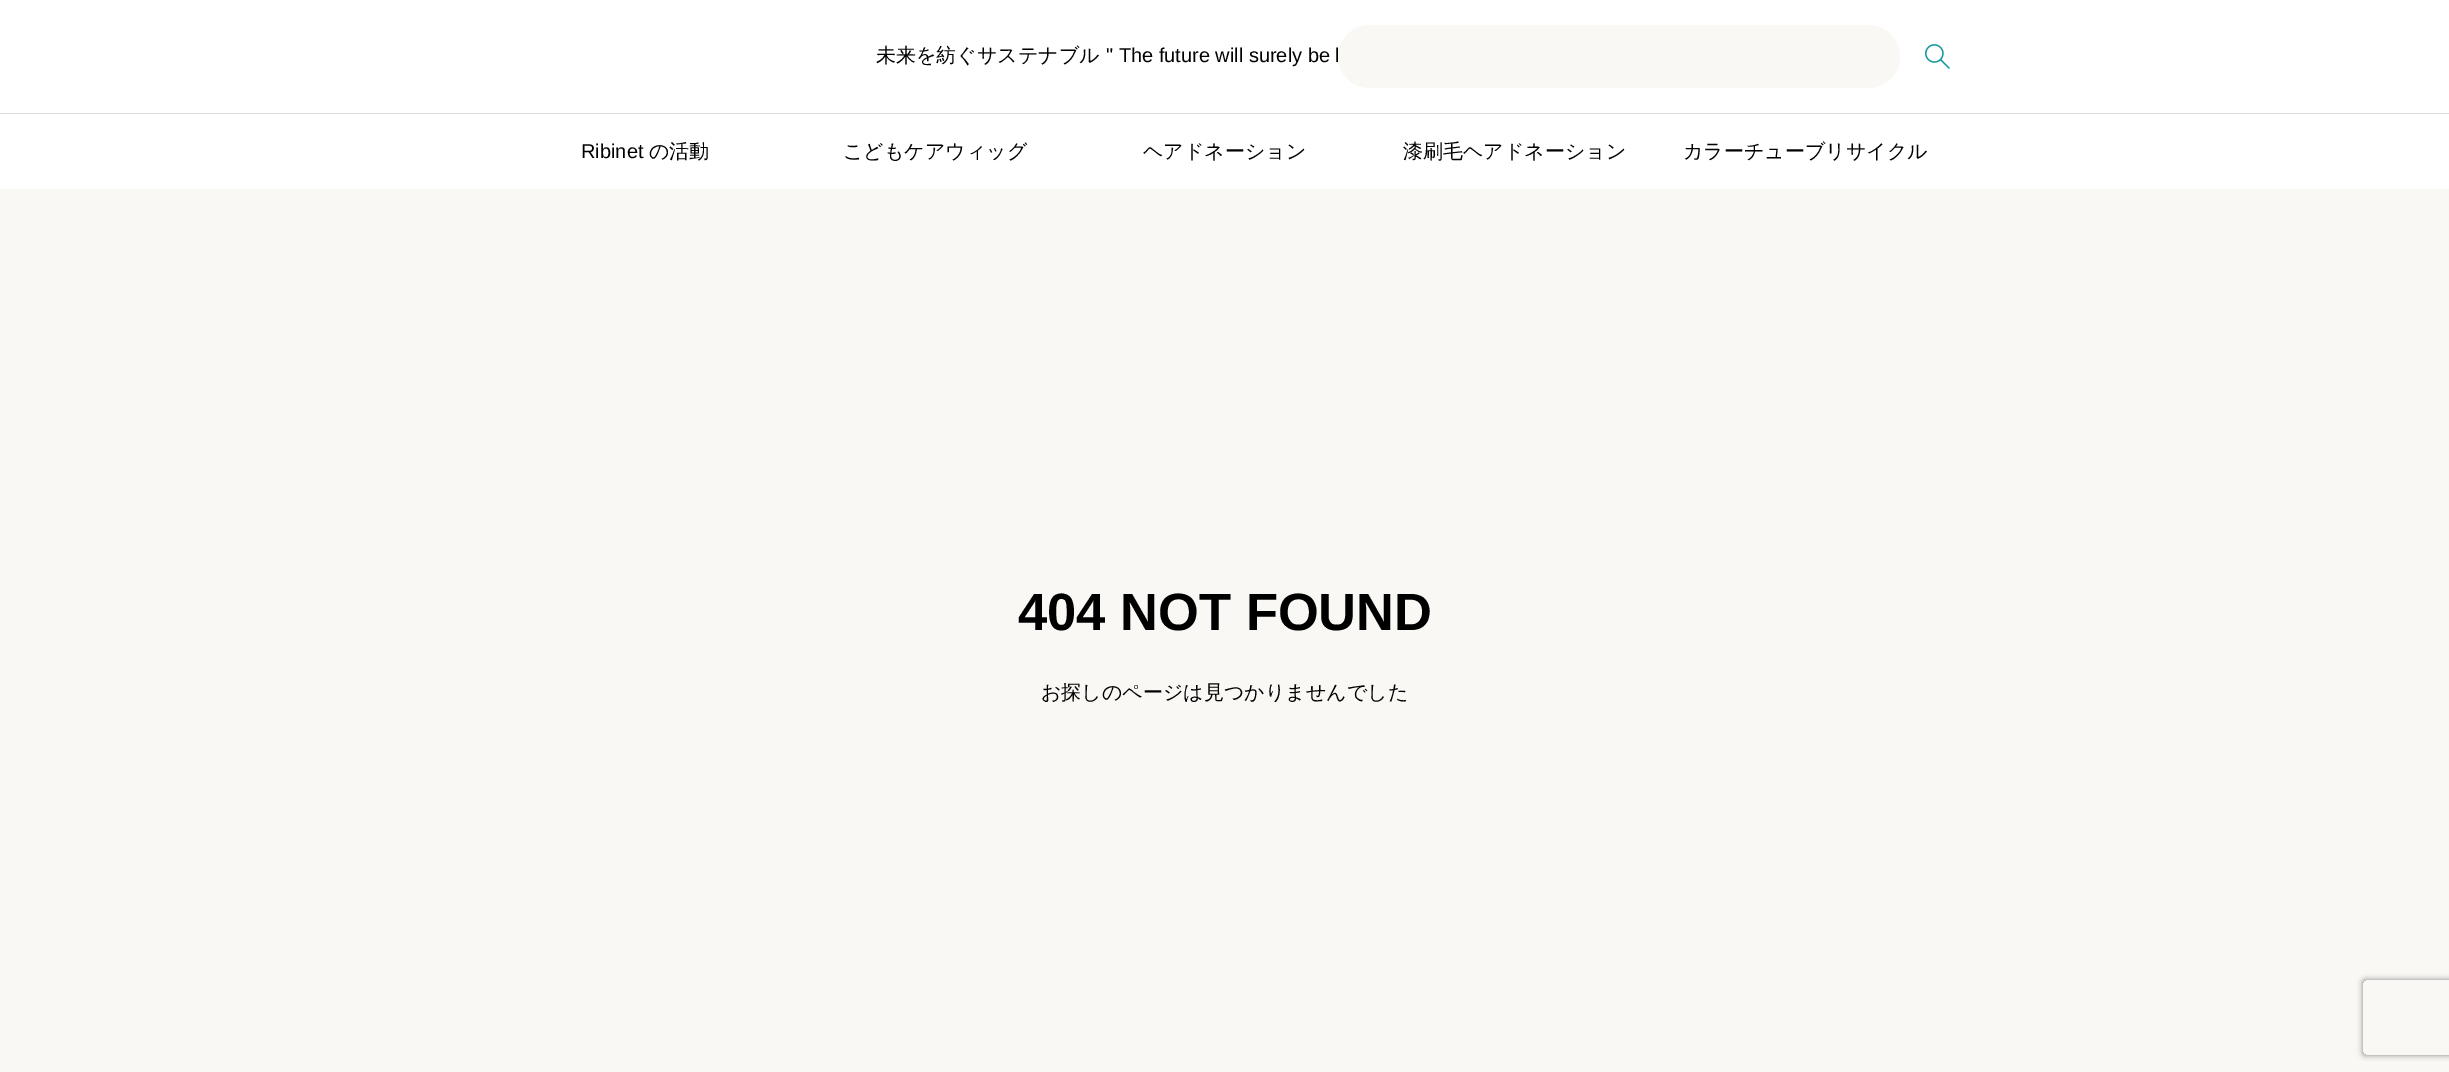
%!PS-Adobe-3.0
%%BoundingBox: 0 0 2449 1072
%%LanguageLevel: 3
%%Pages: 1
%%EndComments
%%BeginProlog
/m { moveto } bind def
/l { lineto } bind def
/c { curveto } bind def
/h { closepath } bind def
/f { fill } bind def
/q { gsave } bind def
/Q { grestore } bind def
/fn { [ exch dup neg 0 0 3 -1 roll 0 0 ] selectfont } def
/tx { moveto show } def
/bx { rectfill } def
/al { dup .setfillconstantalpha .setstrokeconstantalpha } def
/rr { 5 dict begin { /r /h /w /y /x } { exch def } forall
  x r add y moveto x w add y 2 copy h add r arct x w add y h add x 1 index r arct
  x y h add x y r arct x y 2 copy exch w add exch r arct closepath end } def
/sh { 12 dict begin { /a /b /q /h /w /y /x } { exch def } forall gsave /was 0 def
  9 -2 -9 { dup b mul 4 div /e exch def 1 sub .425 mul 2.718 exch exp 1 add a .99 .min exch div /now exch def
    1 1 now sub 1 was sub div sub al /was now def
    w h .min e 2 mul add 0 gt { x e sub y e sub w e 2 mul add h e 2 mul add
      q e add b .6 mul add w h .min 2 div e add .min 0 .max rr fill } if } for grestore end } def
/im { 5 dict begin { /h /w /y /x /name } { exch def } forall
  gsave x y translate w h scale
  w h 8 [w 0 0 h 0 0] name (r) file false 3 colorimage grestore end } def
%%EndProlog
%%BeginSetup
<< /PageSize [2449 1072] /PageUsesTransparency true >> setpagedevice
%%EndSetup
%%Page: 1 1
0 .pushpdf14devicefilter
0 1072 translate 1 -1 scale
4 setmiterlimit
0.976 0.973 0.957 setrgbcolor
0 0 2449 1072 bx
1 setgray
0 0 2449 189 bx
/WenQuanYiZenHei-Medium 20 fn
0 setgray
(未来を紡ぐサステナブル) 876 62 tx
/LiberationSans-Regular 20 fn
(" The future will surely be k) 1106 62 tx
0.976 0.973 0.957 setrgbcolor
1338 25 562 63 31.5 rr f
(image0.raw) 1925 44 25 25 im
0.867 setgray
0 113 2449 1 bx
0 setgray
(Ribinet) 581 158 tx
/WenQuanYiZenHei-Medium 20 fn
(の活動) 649 158 tx
(こどもケアウィッグ) 843 158 tx
(ヘアドネーション) 1143 158 tx
(漆刷毛ヘアドネーション) 1403 158 tx
(カラーチューブリサイクル) 1683 158 tx
/LiberationSans-Bold 52.5 fn
(404 NOT FOUND) 1018 630 tx
/WenQuanYiZenHei-Medium 20 fn
(お探しのページは見つかりませんでした) 1041 699 tx
q
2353 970 m 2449 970 l 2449 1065 l 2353 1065 l h 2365.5 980 m 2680.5 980 l 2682 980 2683 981 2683 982.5 c 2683 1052.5 l 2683 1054 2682 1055 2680.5 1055 c 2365.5 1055 l 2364 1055 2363 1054 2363 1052.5 c 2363 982.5 l 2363 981 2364 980 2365.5 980 c h eoclip newpath
0.502 setgray
2363 980 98 75 2.5 3 1 sh
Q
.poppdf14devicefilter showpage
%%EOF
